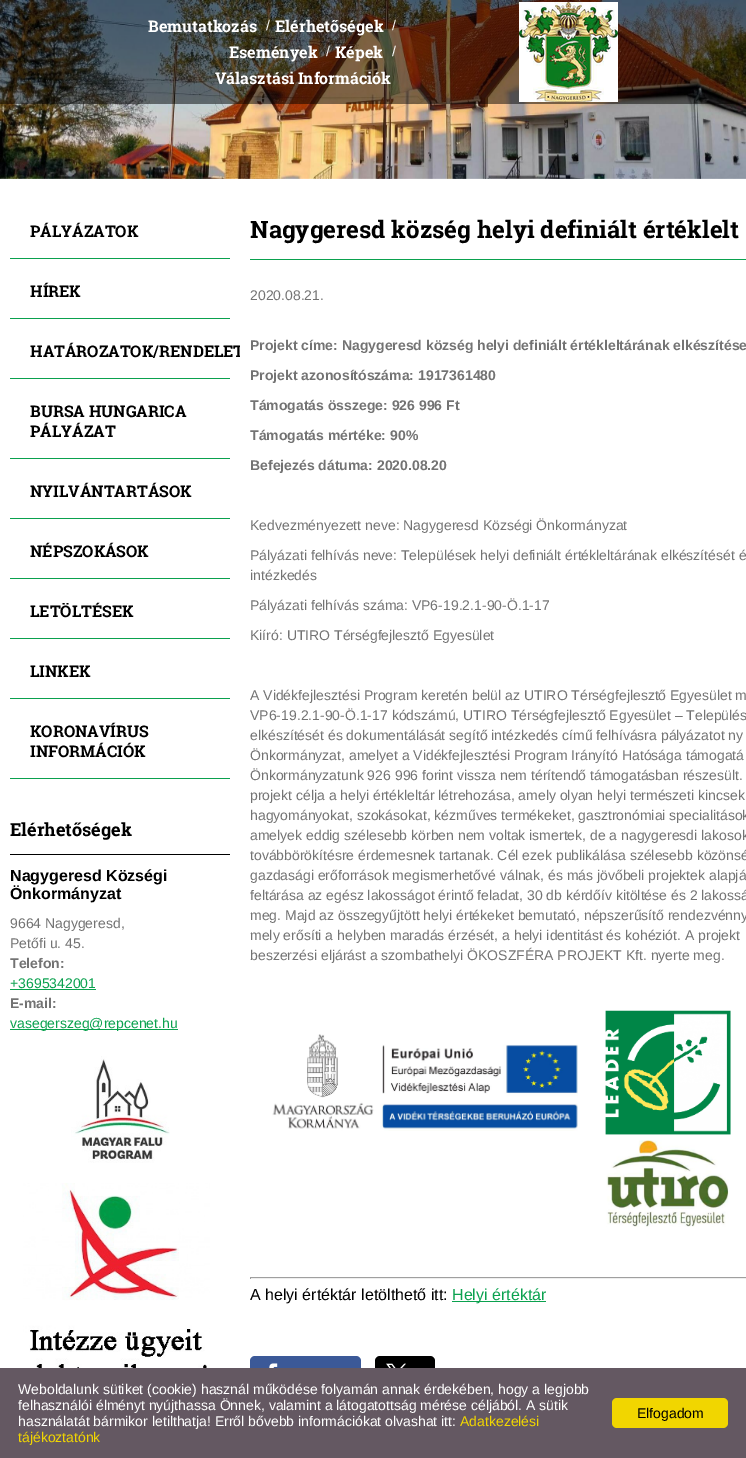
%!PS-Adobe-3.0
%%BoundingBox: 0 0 746 1458
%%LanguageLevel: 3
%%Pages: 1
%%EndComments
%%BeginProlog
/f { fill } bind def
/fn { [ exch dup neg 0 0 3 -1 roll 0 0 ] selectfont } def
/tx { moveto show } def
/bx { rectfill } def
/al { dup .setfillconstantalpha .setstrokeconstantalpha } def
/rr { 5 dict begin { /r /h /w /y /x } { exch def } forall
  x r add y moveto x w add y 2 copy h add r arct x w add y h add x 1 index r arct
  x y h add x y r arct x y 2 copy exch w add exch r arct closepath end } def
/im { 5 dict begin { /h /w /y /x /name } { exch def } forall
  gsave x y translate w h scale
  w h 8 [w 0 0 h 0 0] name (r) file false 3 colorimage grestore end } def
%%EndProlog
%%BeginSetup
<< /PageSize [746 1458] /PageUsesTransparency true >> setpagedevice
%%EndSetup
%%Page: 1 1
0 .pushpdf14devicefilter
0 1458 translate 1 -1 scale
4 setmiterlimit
1 setgray
0 0 746 1458 bx
(image0.raw) 0 0 746 179 im
0.5 al
0 setgray
0 0 746 104 bx
/RobotoSlab-Bold 16 fn
1 al
1 setgray
(Bemutatkozás) 148 32 tx
/LiberationSans-Regular 14 fn
(/) 266 30 tx
/RobotoSlab-Bold 16 fn
(Elérhetőségek) 275 32 tx
/LiberationSans-Regular 14 fn
(/) 392 30 tx
/RobotoSlab-Bold 16 fn
(Események) 229 58 tx
/LiberationSans-Regular 14 fn
(/) 326 56 tx
/RobotoSlab-Bold 16 fn
(Képek) 335 58 tx
/LiberationSans-Regular 14 fn
(/) 392 56 tx
/RobotoSlab-Bold 16 fn
(Választási Információk) 215 84 tx
(image1.raw) 519 2 99 100 im
0.039 0.631 0.306 setrgbcolor
10 258 220 1 bx
0 setgray
(PÁLYÁZATOK) 30 237 tx
0.039 0.631 0.306 setrgbcolor
10 318 220 1 bx
0 setgray
(HÍREK) 30 297 tx
0.039 0.631 0.306 setrgbcolor
10 378 220 1 bx
0 setgray
(HATÁROZATOK/RENDELET) 30 357 tx
0.039 0.631 0.306 setrgbcolor
10 458 220 1 bx
0 setgray
(BURSA HUNGARICA) 30 417 tx
(PÁLYÁZAT) 30 437 tx
0.039 0.631 0.306 setrgbcolor
10 518 220 1 bx
0 setgray
(NYILVÁNTARTÁSOK) 30 497 tx
0.039 0.631 0.306 setrgbcolor
10 578 220 1 bx
0 setgray
(NÉPSZOKÁSOK) 30 557 tx
0.039 0.631 0.306 setrgbcolor
10 638 220 1 bx
0 setgray
(LETÖLTÉSEK) 30 617 tx
0.039 0.631 0.306 setrgbcolor
10 698 220 1 bx
0 setgray
(LINKEK) 30 677 tx
0.039 0.631 0.306 setrgbcolor
10 778 220 1 bx
0 setgray
(KORONAVÍRUS) 30 737 tx
(INFORMÁCIÓK) 30 757 tx
10 854 220 1 bx
/RobotoSlab-Bold 18 fn
(Elérhetőségek) 10 836 tx
/LiberationSans-Bold 16 fn
(Nagygeresd Községi) 10 881 tx
(Önkormányzat) 10 899 tx
/LiberationSans-Regular 14 fn
0.451 setgray
(9664 Nagygeresd,) 10 928 tx
(Petőfi u. 45.) 10 948 tx
/LiberationSans-Bold 14 fn
(Telefon:) 10 968 tx
/LiberationSans-Regular 14 fn
0.039 0.631 0.306 setrgbcolor
(+3695342001) 10 988 tx
10 989 86 1 bx
/LiberationSans-Bold 14 fn
0.451 setgray
(E-mail:) 10 1008 tx
0.039 0.631 0.306 setrgbcolor
10 1029 168 1 bx
/LiberationSans-Regular 14 fn
(vasegerszeg@repcenet.hu) 10 1028 tx
(image2.raw) 71 1056 99 107 im
(image3.raw) 23 1183 187 185 im
1 setgray
240 345 4 12 bx
0.039 0.631 0.306 setrgbcolor
250 259 496 1 bx
/RobotoSlab-Bold 24 fn
0 setgray
(Nagygeresd község helyi definiált értéklelt) 250 238 tx
/LiberationSans-Regular 14 fn
0.451 setgray
(2020.08.21.) 250 300 tx
/LiberationSans-Bold 14 fn
(Projekt címe: Nagygeresd község helyi definiált értékleltárának elkészítése) 250 350 tx
(Projekt azonosítószáma: 1917361480) 250 380 tx
(Támogatás összege: 926 996 Ft) 250 410 tx
(Támogatás mértéke: 90%) 250 440 tx
(Befejezés dátuma: 2020.08.20) 250 470 tx
/LiberationSans-Regular 14 fn
(Kedvezményezett neve: Nagygeresd Községi Önkormányzat) 250 530 tx
(Pályázati felhívás neve: Települések helyi definiált értékleltárának elkészítését é) 250 560 tx
(intézkedés) 250 580 tx
(Pályázati felhívás száma: VP6-19.2.1-90-Ö.1-17) 250 610 tx
(Kiíró: UTIRO Térségfejlesztő Egyesület) 250 640 tx
(A Vidékfejlesztési Program keretén belül az UTIRO Térségfejlesztő Egyesület m) 250 700 tx
(VP6-19.2.1-90-Ö.1-17 kódszámú, UTIRO Térségfejlesztő Egyesület – Település) 250 720 tx
(elkészítését és dokumentálását segítő intézkedés című felhívásra pályázatot ny) 250 740 tx
(Önkormányzat, amelyet a Vidékfejlesztési Program Irányító Hatósága támogatá) 250 760 tx
(Önkormányzatunk 926 996 forint vissza nem térítendő támogatásban részesült.) 250 780 tx
(projekt célja a helyi értékleltár létrehozása, amely olyan helyi természeti kincsek) 250 800 tx
(hagyományokat, szokásokat, kézműves termékeket, gasztronómiai specialitások) 250 820 tx
(amelyek eddig szélesebb körben nem voltak ismertek, de a nagygeresdi lakosok) 250 840 tx
(továbbörökítésre érdemesnek tartanak. Cél ezek publikálása szélesebb közönsé) 250 860 tx
(gazdasági erőforrások megismerhetővé válnak, és más jövőbeli projektek alapjá) 250 880 tx
(feltárása az egész lakosságot érintő feladat, 30 db kérdőív kitöltése és 2 lakossá) 250 900 tx
(meg. Majd az összegyűjtött helyi értékeket bemutató, népszerűsítő rendezvénny) 250 920 tx
(mely erősíti a helyben maradás érzését, a helyi identitást és kohéziót. A projekt) 250 940 tx
(beszerzési eljárást a szombathelyi ÖKOSZFÉRA PROJEKT Kft. nyerte meg.) 250 960 tx
(image4.raw) 272 1034 306 97 im
(image5.raw) 605 1010 126 125 im
(image6.raw) 606 1140 123 87 im
0.624 setgray
250 1277 496 1 bx
0.933 setgray
250 1278 496 1 bx
0.624 setgray
250 1277 1 2 bx
/LiberationSans-Regular 16 fn
0 setgray
(A helyi értéktár letölthető itt:) 250 1300 tx
0.039 0.631 0.306 setrgbcolor
452 1301 94 1 bx
(Helyi értéktár) 452 1300 tx
0.231 0.349 0.596 setrgbcolor
250 1356 111 35 5 rr f
(image7.raw) 269 1363 9 5 im
0 setgray
375 1356 60 35 5 rr f
(image8.raw) 386 1363 20 5 im
0.392 0.345 0.384 setrgbcolor
0 1368 746 90 bx
/LiberationSans-Regular 14 fn
1 setgray
(Weboldalunk sütiket \(cookie\) használ működése folyamán annak érdekében, hogy a legjobb) 18 1394 tx
(felhasználói élményt nyújthassa Önnek, valamint a látogatottság mérése céljából. A sütik) 18 1410 tx
(használatát bármikor letilthatja! Erről bővebb információkat olvashat itt:) 18 1426 tx
0.945 0.839 0 setrgbcolor
(Adatkezelési) 460 1426 tx
(tájékoztatónk) 18 1442 tx
612 1398 116 30 5 rr f
0 setgray
(Elfogadom) 637 1418 tx
.poppdf14devicefilter showpage
%%EOF
